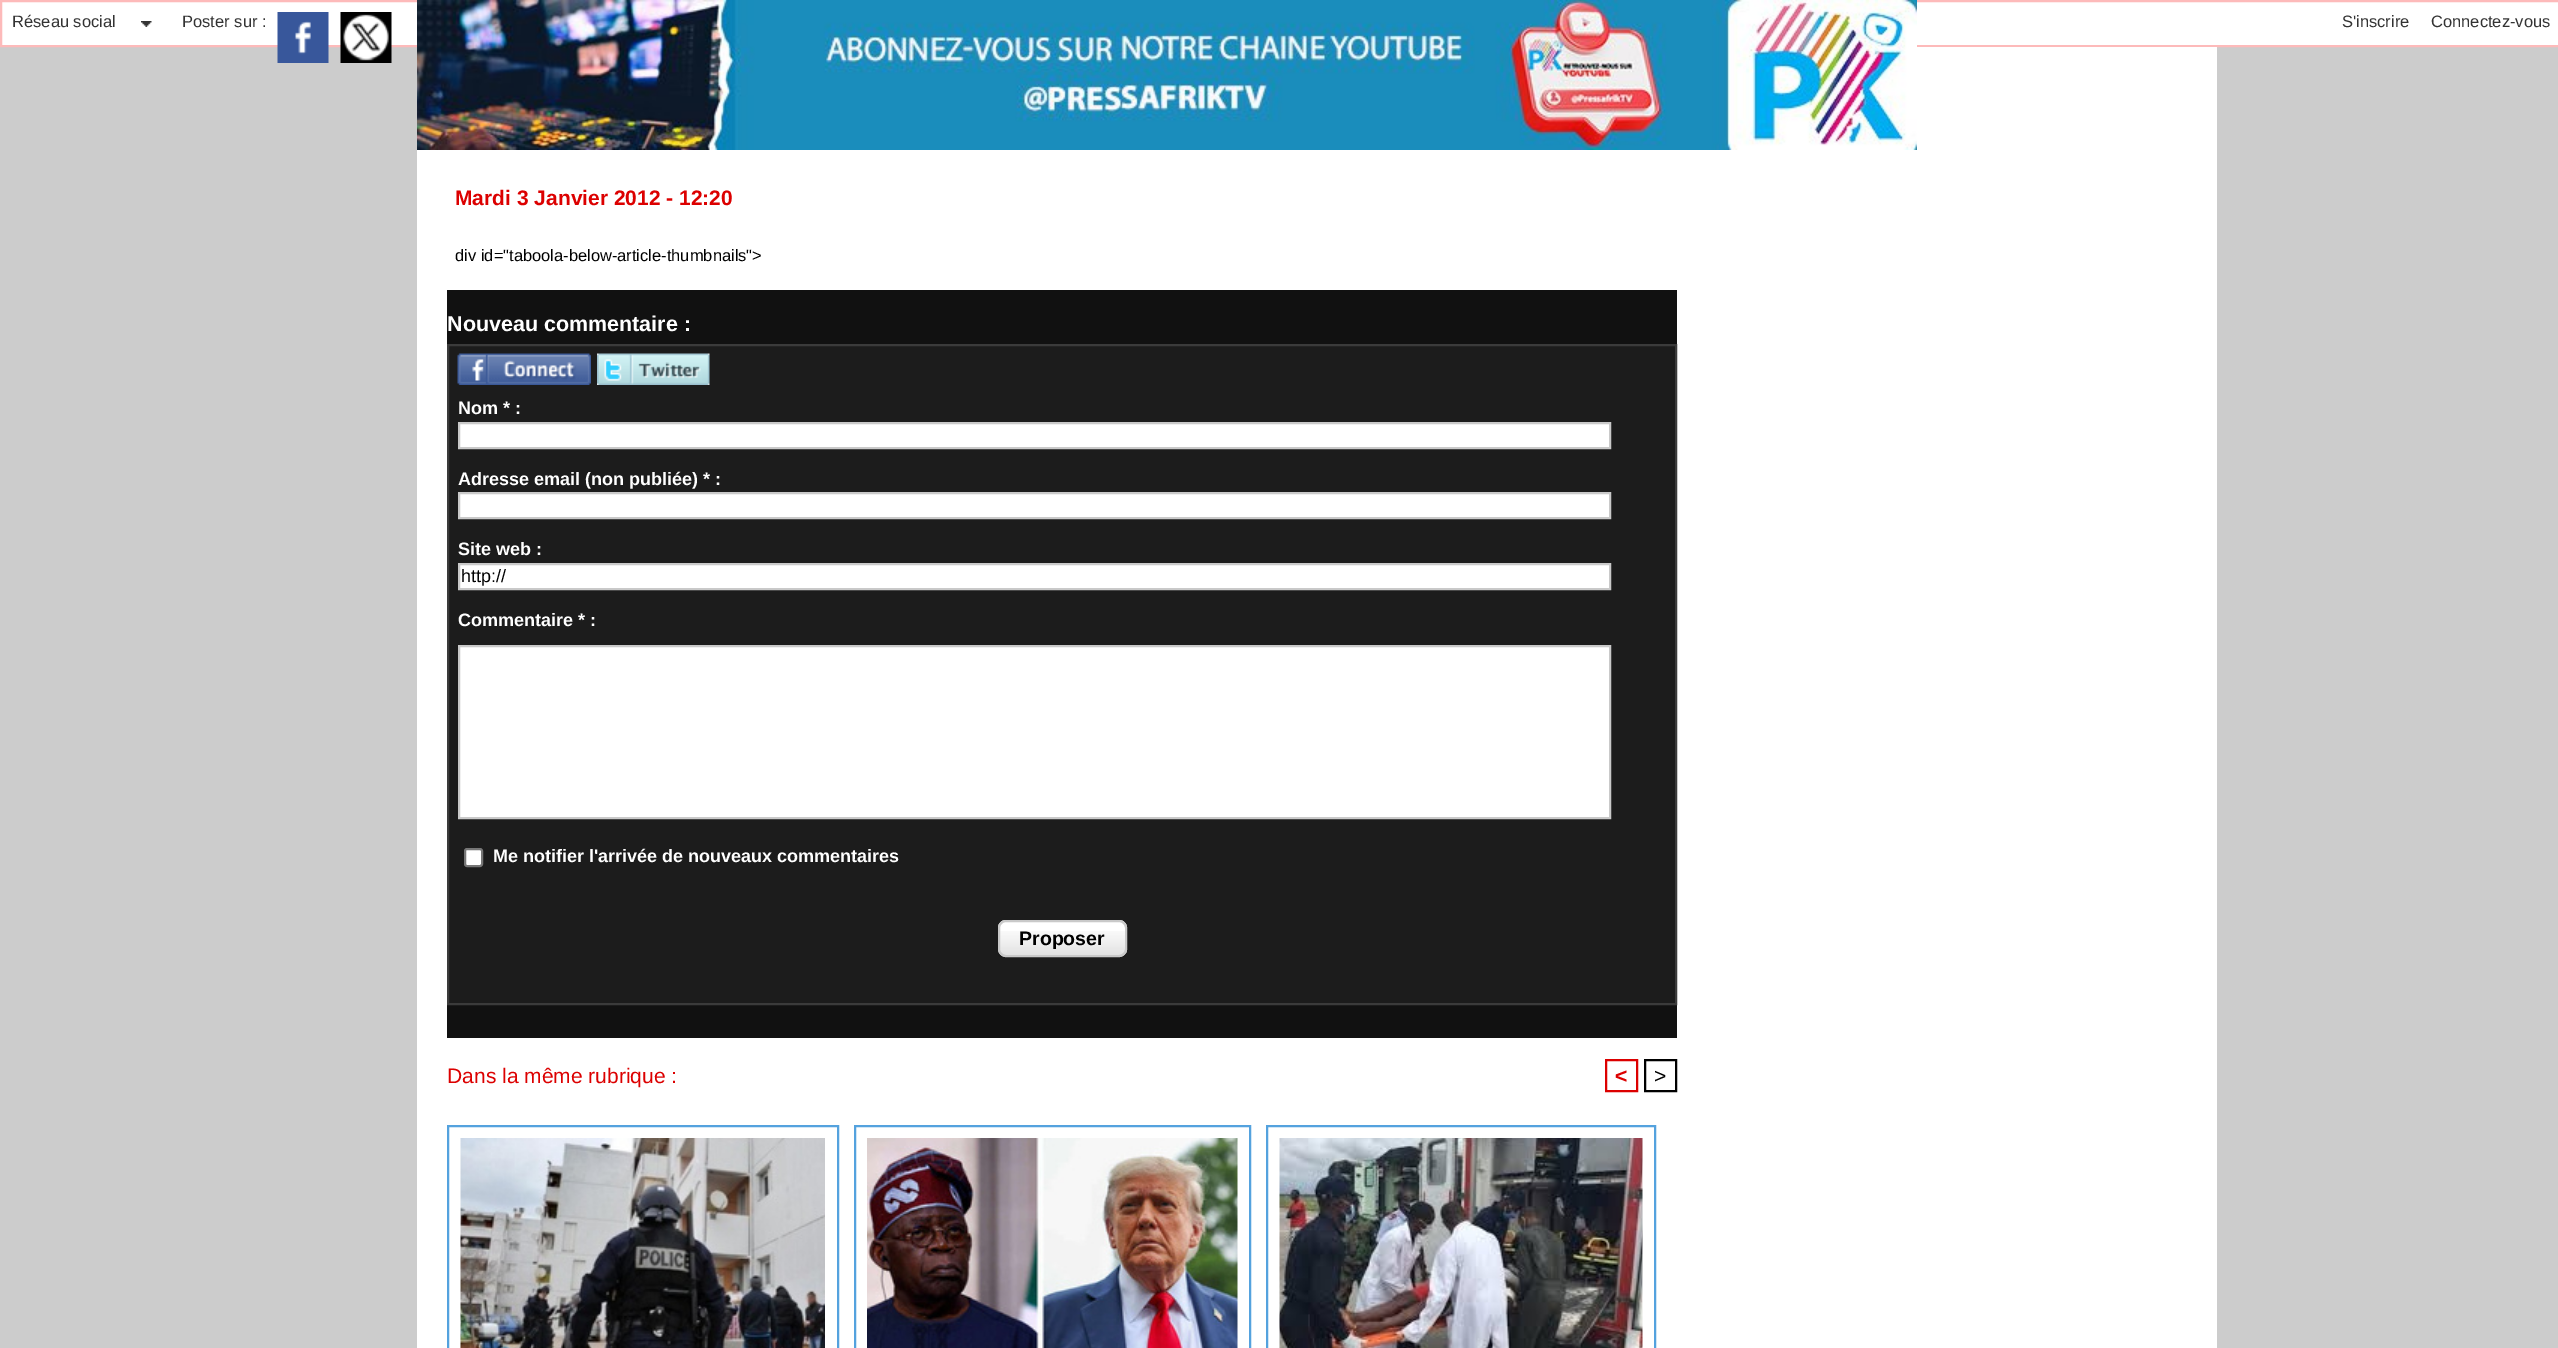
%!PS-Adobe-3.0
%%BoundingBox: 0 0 2558 1348
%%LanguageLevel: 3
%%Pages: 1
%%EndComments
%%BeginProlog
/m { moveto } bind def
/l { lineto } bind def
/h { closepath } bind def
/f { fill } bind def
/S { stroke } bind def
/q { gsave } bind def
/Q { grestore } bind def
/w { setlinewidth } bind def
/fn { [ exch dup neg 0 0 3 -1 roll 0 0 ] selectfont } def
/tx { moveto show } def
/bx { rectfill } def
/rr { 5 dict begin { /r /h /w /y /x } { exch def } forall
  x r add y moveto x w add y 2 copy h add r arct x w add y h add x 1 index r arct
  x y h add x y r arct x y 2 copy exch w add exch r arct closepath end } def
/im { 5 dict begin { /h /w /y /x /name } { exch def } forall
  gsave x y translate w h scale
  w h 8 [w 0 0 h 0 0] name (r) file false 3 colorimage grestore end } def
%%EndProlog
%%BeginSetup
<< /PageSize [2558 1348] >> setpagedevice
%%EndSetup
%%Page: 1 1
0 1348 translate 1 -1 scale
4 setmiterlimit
0.8 setgray
0 0 2558 1348 bx
1 setgray
1 1 m 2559 1 l 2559 46 l 1 46 l h q f Q
0.992 0.729 0.729 setrgbcolor
2 w
S
1 setgray
417 47 1800 1301 bx
(image0.raw) 417 0 1500 150 im
(image1.raw) 141 21 11 6 im
/LiberationSans-Regular 16.5 fn
0.2 setgray
(Réseau social) 12 27 tx
(Poster sur :) 182 27 tx
(image2.raw) 277 12 52 51 im
(image3.raw) 340 12 52 51 im
(S'inscrire) 2342 27 tx
(Connectez-vous) 2431 27 tx
/LiberationSans-Bold 21 fn
0.863 0 0 setrgbcolor
(Mardi 3 Janvier 2012 - 12:20) 455 205 tx
/LiberationSans-Regular 16.5 fn
0 setgray
(div id="taboola-below-article-thumbnails">) 455 261 tx
0.067 setgray
447 290 1230 748 bx
/LiberationSans-Bold 21.5 fn
1 setgray
(Nouveau commentaire :) 447 331 tx
0.11 setgray
448 345 m 1676 345 l 1676 1004 l 448 1004 l h q f Q
0.231 setgray
S
(image4.raw) 457 353 134 32 im
(image5.raw) 597 353 113 32 im
/LiberationSans-Bold 18 fn
1 setgray
(Nom * :) 458 414 tx
459 423 m 1610 423 l 1610 448 l 459 448 l h q f Q
0.788 setgray
S
1 setgray
(Adresse email \(non publiée\) * :) 458 485 tx
459 493 m 1610 493 l 1610 518 l 459 518 l h q f Q
0.788 setgray
S
1 setgray
(Site web :) 458 555 tx
459 564 m 1610 564 l 1610 589 l 459 589 l h q f Q
0.788 setgray
S
/LiberationSans-Regular 18 fn
0 setgray
(http://) 461 582 tx
/LiberationSans-Bold 18 fn
1 setgray
(Commentaire * :) 458 626 tx
459 646 m 1610 646 l 1610 818 l 459 818 l h q f Q
0.788 setgray
S
1 setgray
465 849 17 17 2 rr q f Q
0.463 setgray
S
1 setgray
(Me notifier l'arrivée de nouveaux commentaires) 493 862 tx
998 920 129 37 8 rr f
(image6.raw) 998 931 128 26 im
0.788 setgray
999 921 127 35 7 rr S
/LiberationSans-Bold 19.5 fn
0 setgray
(Proposer) 1019 945 tx
/LiberationSans-Regular 21 fn
0.863 0 0 setrgbcolor
(Dans la même rubrique :) 447 1083 tx
1606 1060 31 31 rectstroke
/LiberationSans-Bold 21 fn
(<) 1615 1083 tx
0 setgray
1645 1060 31 31 rectstroke
/LiberationSans-Regular 21 fn
(>) 1654 1083 tx
0.329 0.635 0.871 setrgbcolor
448 1126 390 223 rectstroke
(image7.raw) 460 1138 365 210 im
855 1126 395 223 rectstroke
(image8.raw) 867 1138 371 210 im
1267 1126 388 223 rectstroke
(image9.raw) 1279 1138 364 210 im
showpage
%%EOF
